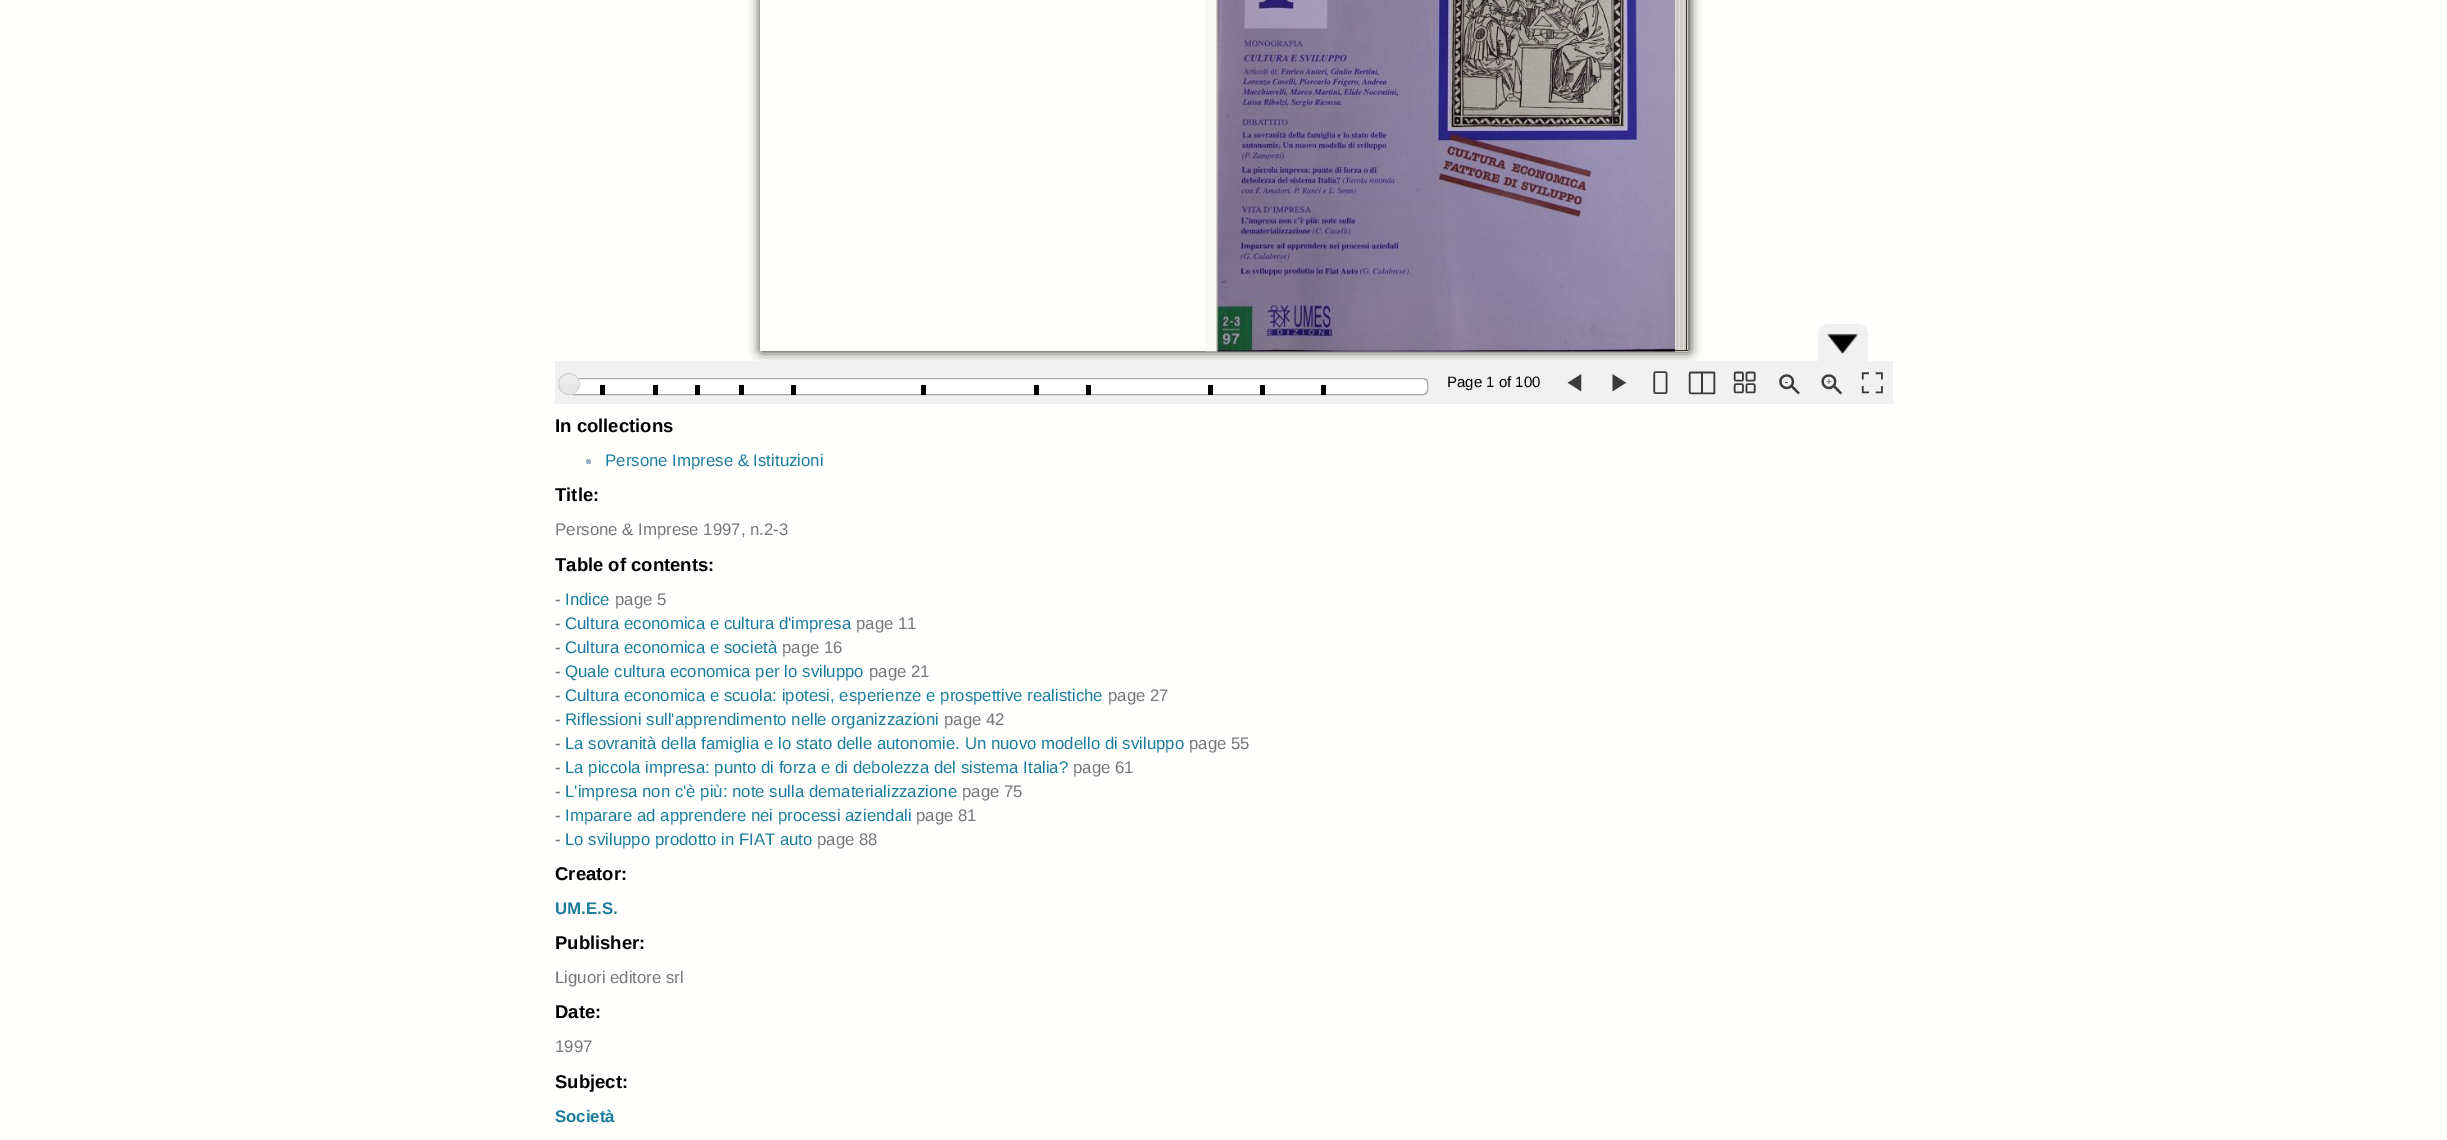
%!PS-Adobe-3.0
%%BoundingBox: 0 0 2447 1140
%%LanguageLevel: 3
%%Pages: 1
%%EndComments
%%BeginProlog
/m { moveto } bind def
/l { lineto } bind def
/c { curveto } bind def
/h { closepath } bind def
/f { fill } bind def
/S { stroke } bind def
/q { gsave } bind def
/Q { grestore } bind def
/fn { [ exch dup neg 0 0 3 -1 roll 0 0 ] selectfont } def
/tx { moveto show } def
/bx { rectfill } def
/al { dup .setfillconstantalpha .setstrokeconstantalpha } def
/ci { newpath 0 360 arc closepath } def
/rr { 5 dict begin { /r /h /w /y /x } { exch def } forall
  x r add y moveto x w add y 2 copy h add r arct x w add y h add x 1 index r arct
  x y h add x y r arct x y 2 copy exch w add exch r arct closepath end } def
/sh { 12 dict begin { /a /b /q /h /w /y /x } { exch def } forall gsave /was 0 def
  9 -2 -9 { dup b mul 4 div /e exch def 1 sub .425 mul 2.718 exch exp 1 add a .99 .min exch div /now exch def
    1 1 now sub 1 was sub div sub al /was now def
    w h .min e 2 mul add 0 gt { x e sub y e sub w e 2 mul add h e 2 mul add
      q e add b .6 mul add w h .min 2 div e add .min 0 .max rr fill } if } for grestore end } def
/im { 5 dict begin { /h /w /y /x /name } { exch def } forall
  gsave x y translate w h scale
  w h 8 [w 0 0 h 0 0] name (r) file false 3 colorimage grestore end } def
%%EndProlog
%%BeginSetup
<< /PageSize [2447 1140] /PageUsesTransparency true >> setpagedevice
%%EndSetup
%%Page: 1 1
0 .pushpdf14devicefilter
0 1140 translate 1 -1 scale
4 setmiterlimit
1 1 0.992 setrgbcolor
0 0 2447 1140 bx
q
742 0 m 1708 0 l 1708 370 l 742 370 l h 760 -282 m 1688 -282 l 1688 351 l 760 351 l h eoclip newpath
0.067 setgray
761 -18 928 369 0 6 1 sh
Q
(image0.raw) 1205 0 13 352 im
(image1.raw) 1217 0 458 352 im
(image2.raw) 1675 0 13 352 im
0.2 0.2 0.133 setrgbcolor
1686 0 1 351 bx
1675 350 13 1 bx
0.945 setgray
555 361 1338 43 bx
1828 324 m 1858 324 l 1863.5 324 1868 328.5 1868 334 c 1868 361 l 1818 361 l 1818 334 l 1818 328.5 1822.5 324 1828 324 c h f
(image3.raw) 1827 333 31 21 im
(image4.raw) 571 378 857 17 im
0.667 setgray
568.5 378.5 859 16 4.5 rr S
(image5.raw) 558 373 22 22 im
0.827 setgray
569 384 10.5 ci S
0 setgray
600 385 5 10 bx
653 385 5 10 bx
695 385 5 10 bx
739 385 5 10 bx
791 385 5 10 bx
921 385 5 10 bx
1034 385 5 10 bx
1086 385 5 10 bx
1208 385 5 10 bx
1260 385 5 10 bx
1321 385 5 10 bx
/LiberationSans-Regular 15 fn
(Page 1 of 100) 1447 387 tx
(image6.raw) 1567 374 15 18 im
(image7.raw) 1612 374 15 18 im
(image8.raw) 1653 371 15 23 im
(image9.raw) 1688 371 28 24 im
(image10.raw) 1733 371 23 23 im
(image11.raw) 1779 374 21 21 im
(image12.raw) 1821 374 22 21 im
(image13.raw) 1861 372 22 22 im
/LiberationSans-Bold 18.5 fn
(In collections) 555 432 tx
0.588 0.675 0.749 setrgbcolor
588.5 461.5 2.5 ci f
/LiberationSans-Regular 16.8 fn
0.11 0.486 0.612 setrgbcolor
(Persone Imprese & Istituzioni) 605 466 tx
/LiberationSans-Bold 18.5 fn
0 setgray
(Title:) 555 501 tx
/LiberationSans-Regular 16.8 fn
0.467 setgray
(Persone & Imprese 1997, n.2-3) 555 535 tx
/LiberationSans-Bold 18.5 fn
0 setgray
(Table of contents:) 555 571 tx
/LiberationSans-Regular 16.8 fn
0.467 setgray
(-) 555 605 tx
0.11 0.486 0.612 setrgbcolor
(Indice) 565 605 tx
0.467 setgray
(page 5) 615 605 tx
(-) 555 629 tx
0.11 0.486 0.612 setrgbcolor
(Cultura economica e cultura d'impresa) 565 629 tx
0.467 setgray
(page 11) 856 629 tx
(-) 555 653 tx
0.11 0.486 0.612 setrgbcolor
(Cultura economica e società) 565 653 tx
0.467 setgray
(page 16) 782 653 tx
(-) 555 677 tx
0.11 0.486 0.612 setrgbcolor
(Quale cultura economica per lo sviluppo) 565 677 tx
0.467 setgray
(page 21) 869 677 tx
(-) 555 701 tx
0.11 0.486 0.612 setrgbcolor
(Cultura economica e scuola: ipotesi, esperienze e prospettive realistiche) 565 701 tx
0.467 setgray
(page 27) 1108 701 tx
(-) 555 725 tx
0.11 0.486 0.612 setrgbcolor
(Riflessioni sull'apprendimento nelle organizzazioni) 565 725 tx
0.467 setgray
(page 42) 944 725 tx
(-) 555 749 tx
0.11 0.486 0.612 setrgbcolor
(La sovranità della famiglia e lo stato delle autonomie. Un nuovo modello di sviluppo) 565 749 tx
0.467 setgray
(page 55) 1189 749 tx
(-) 555 773 tx
0.11 0.486 0.612 setrgbcolor
(La piccola impresa: punto di forza e di debolezza del sistema Italia?) 565 773 tx
0.467 setgray
(page 61) 1073 773 tx
(-) 555 797 tx
0.11 0.486 0.612 setrgbcolor
(L'impresa non c'è più: note sulla dematerializzazione) 565 797 tx
0.467 setgray
(page 75) 962 797 tx
(-) 555 821 tx
0.11 0.486 0.612 setrgbcolor
(Imparare ad apprendere nei processi aziendali) 565 821 tx
0.467 setgray
(page 81) 916 821 tx
(-) 555 845 tx
0.11 0.486 0.612 setrgbcolor
(Lo sviluppo prodotto in FIAT auto) 565 845 tx
0.467 setgray
(page 88) 817 845 tx
/LiberationSans-Bold 18.5 fn
0 setgray
(Creator:) 555 880 tx
/LiberationSans-Bold 16.8 fn
0.11 0.486 0.612 setrgbcolor
(UM.E.S.) 555 914 tx
/LiberationSans-Bold 18.5 fn
0 setgray
(Publisher:) 555 949 tx
/LiberationSans-Regular 16.8 fn
0.467 setgray
(Liguori editore srl) 555 983 tx
/LiberationSans-Bold 18.5 fn
0 setgray
(Date:) 555 1018 tx
/LiberationSans-Regular 16.8 fn
0.467 setgray
(1997) 555 1052 tx
/LiberationSans-Bold 18.5 fn
0 setgray
(Subject:) 555 1088 tx
/LiberationSans-Bold 16.8 fn
0.11 0.486 0.612 setrgbcolor
(Società) 555 1122 tx
.poppdf14devicefilter showpage
%%EOF
